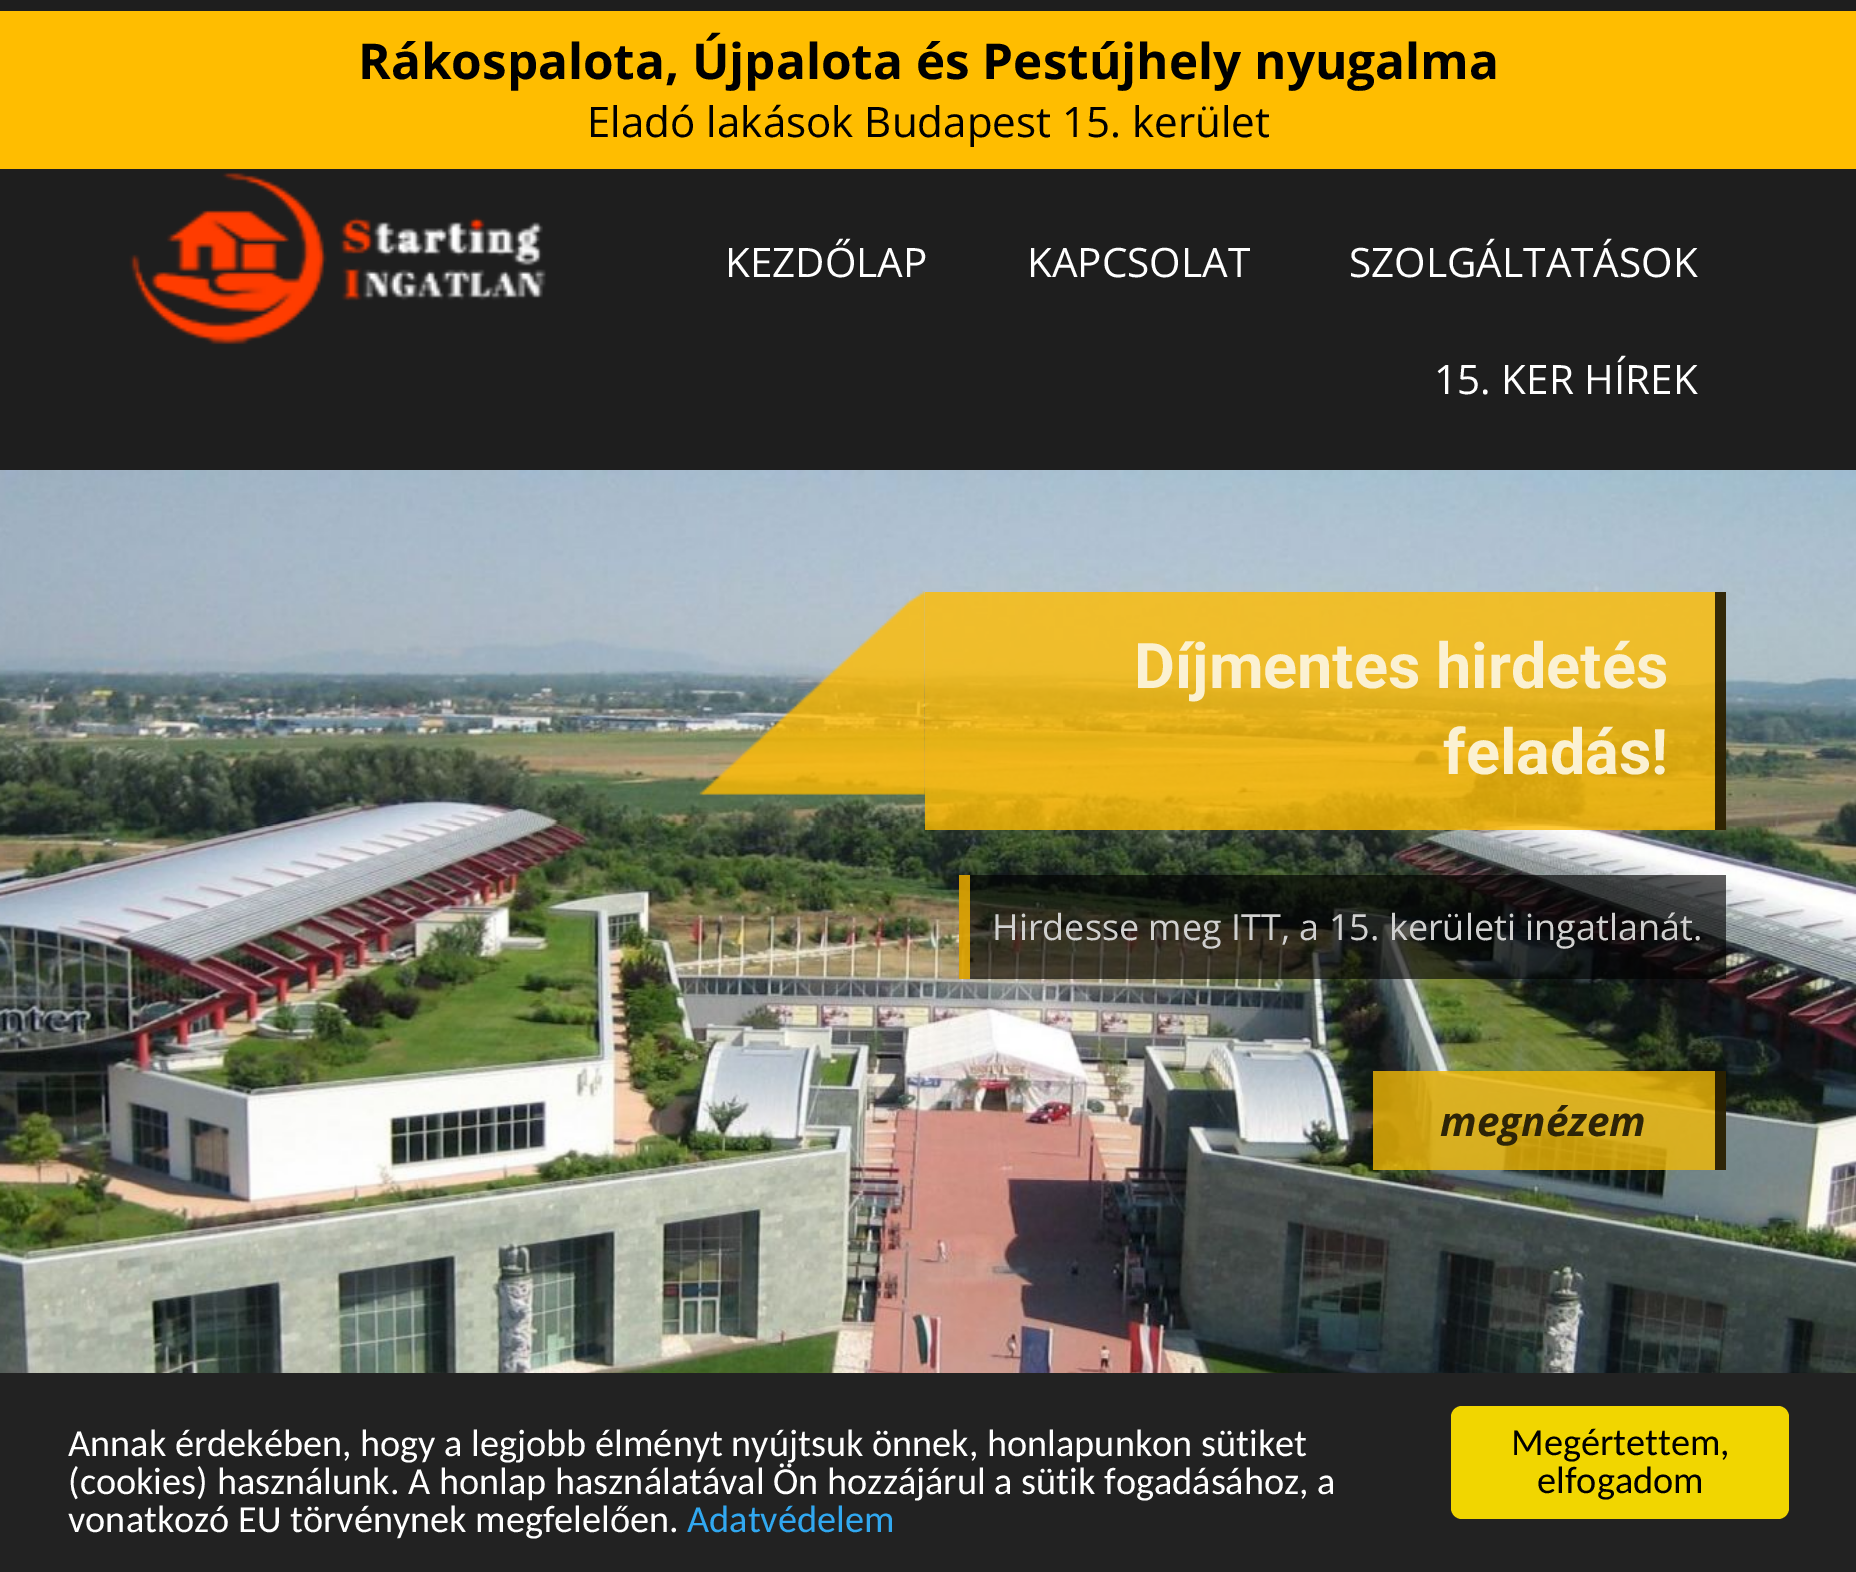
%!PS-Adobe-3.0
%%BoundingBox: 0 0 1856 1572
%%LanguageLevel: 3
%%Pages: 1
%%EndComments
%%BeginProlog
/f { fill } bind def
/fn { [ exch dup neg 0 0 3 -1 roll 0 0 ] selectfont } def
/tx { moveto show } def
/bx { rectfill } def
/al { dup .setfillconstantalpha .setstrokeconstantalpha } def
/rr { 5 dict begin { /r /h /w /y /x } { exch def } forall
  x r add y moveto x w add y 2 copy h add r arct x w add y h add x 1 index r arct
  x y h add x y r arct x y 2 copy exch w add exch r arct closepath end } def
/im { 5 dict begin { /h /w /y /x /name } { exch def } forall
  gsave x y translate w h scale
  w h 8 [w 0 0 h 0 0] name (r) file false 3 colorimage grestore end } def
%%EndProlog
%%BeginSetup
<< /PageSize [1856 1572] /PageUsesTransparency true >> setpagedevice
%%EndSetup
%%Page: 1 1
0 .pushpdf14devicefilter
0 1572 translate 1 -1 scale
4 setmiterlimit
0.118 setgray
0 0 1856 1572 bx
1 0.741 0 setrgbcolor
0 11 1856 158 bx
/OpenSans-Bold 49.5 fn
0 setgray
(Rákospalota, Újpalota és Pestújhely nyugalma) 358 79 tx
/OpenSans-Regular 42.1 fn
(Eladó lakások Budapest 15. kerület) 587 137 tx
(image0.raw) 129 172 417 173 im
/OpenSans-Regular 40.5 fn
1 setgray
(KEZDŐLAP) 725 277 tx
(KAPCSOLAT) 1027 277 tx
(SZOLGÁLTATÁSOK) 1349 277 tx
(15. KER HÍREK) 1434 394 tx
(image1.raw) 0 470 1856 903 im
0.79 al
1 0.737 0 setrgbcolor
925 592 801 238 bx
0 setgray
1715 592 11 238 bx
1 al
(image2.raw) 699 591 226 204 im
/Roboto-Bold 63 fn
0.984 0.945 0.824 setrgbcolor
(Díjmentes hirdetés) 1134 688 tx
(feladás!) 1443 774 tx
0.63 al
0 setgray
959 875 767 104 bx
0.79 al
1 0.737 0 setrgbcolor
959 875 11 104 bx
/OpenSans-Regular 36 fn
1 al
0.816 0.816 0.812 setrgbcolor
(Hirdesse meg ITT, a 15. kerületi ingatlanát.) 992 940 tx
0.79 al
0.953 0.729 0.02 setrgbcolor
1373 1071 353 99 bx
/OpenSans-BoldItalic 40.5 fn
1 al
0.176 0.141 0.027 setrgbcolor
(megnézem) 1440 1136 tx
0.79 al
0 setgray
1715 1071 11 99 bx
1 al
0.133 setgray
0 1373 1856 199 bx
/Carlito-Regular 38.25 fn
1 setgray
(Annak érdekében, hogy a legjobb élményt nyújtsuk önnek, honlapunkon sütiket) 68 1456 tx
(\(cookies\) használunk. A honlap használatával Ön hozzájárul a sütik fogadásához, a) 68 1494 tx
(vonatkozó EU törvénynek megfelelően.) 68 1532 tx
0.192 0.659 0.941 setrgbcolor
(Adatvédelem) 687 1532 tx
0.945 0.839 0 setrgbcolor
1451 1406 338 113 11 rr f
0 setgray
(Megértettem,) 1511 1455 tx
(elfogadom) 1537 1493 tx
.poppdf14devicefilter showpage
%%EOF
